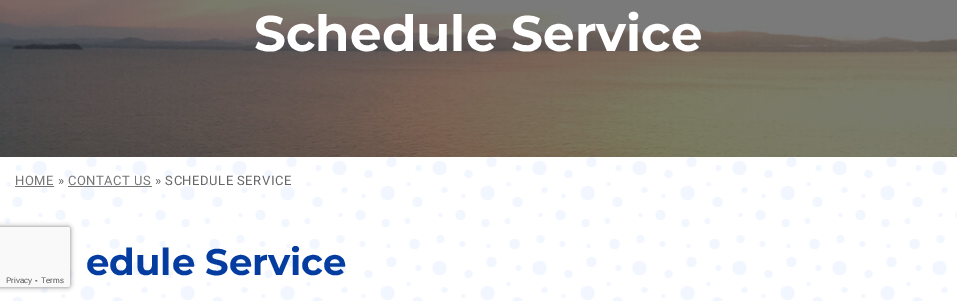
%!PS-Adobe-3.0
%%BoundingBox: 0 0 957 301
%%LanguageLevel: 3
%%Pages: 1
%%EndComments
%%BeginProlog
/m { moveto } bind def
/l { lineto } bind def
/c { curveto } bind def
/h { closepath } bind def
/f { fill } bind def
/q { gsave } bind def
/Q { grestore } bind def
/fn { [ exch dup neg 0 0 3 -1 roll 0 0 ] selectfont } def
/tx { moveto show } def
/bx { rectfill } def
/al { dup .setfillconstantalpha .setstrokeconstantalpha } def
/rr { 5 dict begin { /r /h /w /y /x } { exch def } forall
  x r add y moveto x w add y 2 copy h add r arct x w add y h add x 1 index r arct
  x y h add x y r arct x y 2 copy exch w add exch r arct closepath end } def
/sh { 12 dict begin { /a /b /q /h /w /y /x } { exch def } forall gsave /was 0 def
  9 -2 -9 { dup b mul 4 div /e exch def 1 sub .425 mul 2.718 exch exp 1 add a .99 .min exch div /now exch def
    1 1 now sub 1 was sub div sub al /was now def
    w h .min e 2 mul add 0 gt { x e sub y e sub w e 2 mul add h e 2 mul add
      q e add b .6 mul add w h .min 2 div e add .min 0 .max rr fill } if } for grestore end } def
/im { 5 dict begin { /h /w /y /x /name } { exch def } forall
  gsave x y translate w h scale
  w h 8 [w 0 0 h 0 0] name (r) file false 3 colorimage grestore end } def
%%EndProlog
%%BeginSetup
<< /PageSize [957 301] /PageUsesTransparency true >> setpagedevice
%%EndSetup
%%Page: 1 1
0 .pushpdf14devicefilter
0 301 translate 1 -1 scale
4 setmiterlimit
1 setgray
0 0 957 301 bx
(image0.raw) 0 0 957 157 im
/Montserrat-Thin 50 fn
(Schedule Service) 254 51 tx
(image1.raw) 4 157 953 144 im
/Roboto-Regular 13 fn
0.459 setgray
15 185 m 0.5 0 (HOME) ashow
15 186 39 1 bx
0.4 setgray
58 185 m 0.5 0 (») ashow
0.459 setgray
68 185 m 0.5 0 (CONTACT US) ashow
0.9 al
0.4 setgray
68 186 84 1 bx
1 al
155 185 m 0.5 0 (» SCHEDULE SERVICE) ashow
/Montserrat-Thin 37 fn
0.016 0.239 0.624 setrgbcolor
(edule Service) 86 275 tx
0.502 setgray
-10 227 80 60 2 2.5 1 sh
q
-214 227 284 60 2 rr clip newpath
0 setgray
-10 226 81 62 4 2 0.08 sh
Q
0.976 setgray
0 227 m 68 227 l 69 227 70 228 70 229 c 70 285 l 70 286 69 287 68 287 c 0 287 l h f
/LiberationSans-Regular 8 fn
0.333 setgray
(Privacy) 6 283 tx
0 setgray
(-) 35 283 tx
0.333 setgray
(Terms) 41 283 tx
.poppdf14devicefilter showpage
%%EOF
